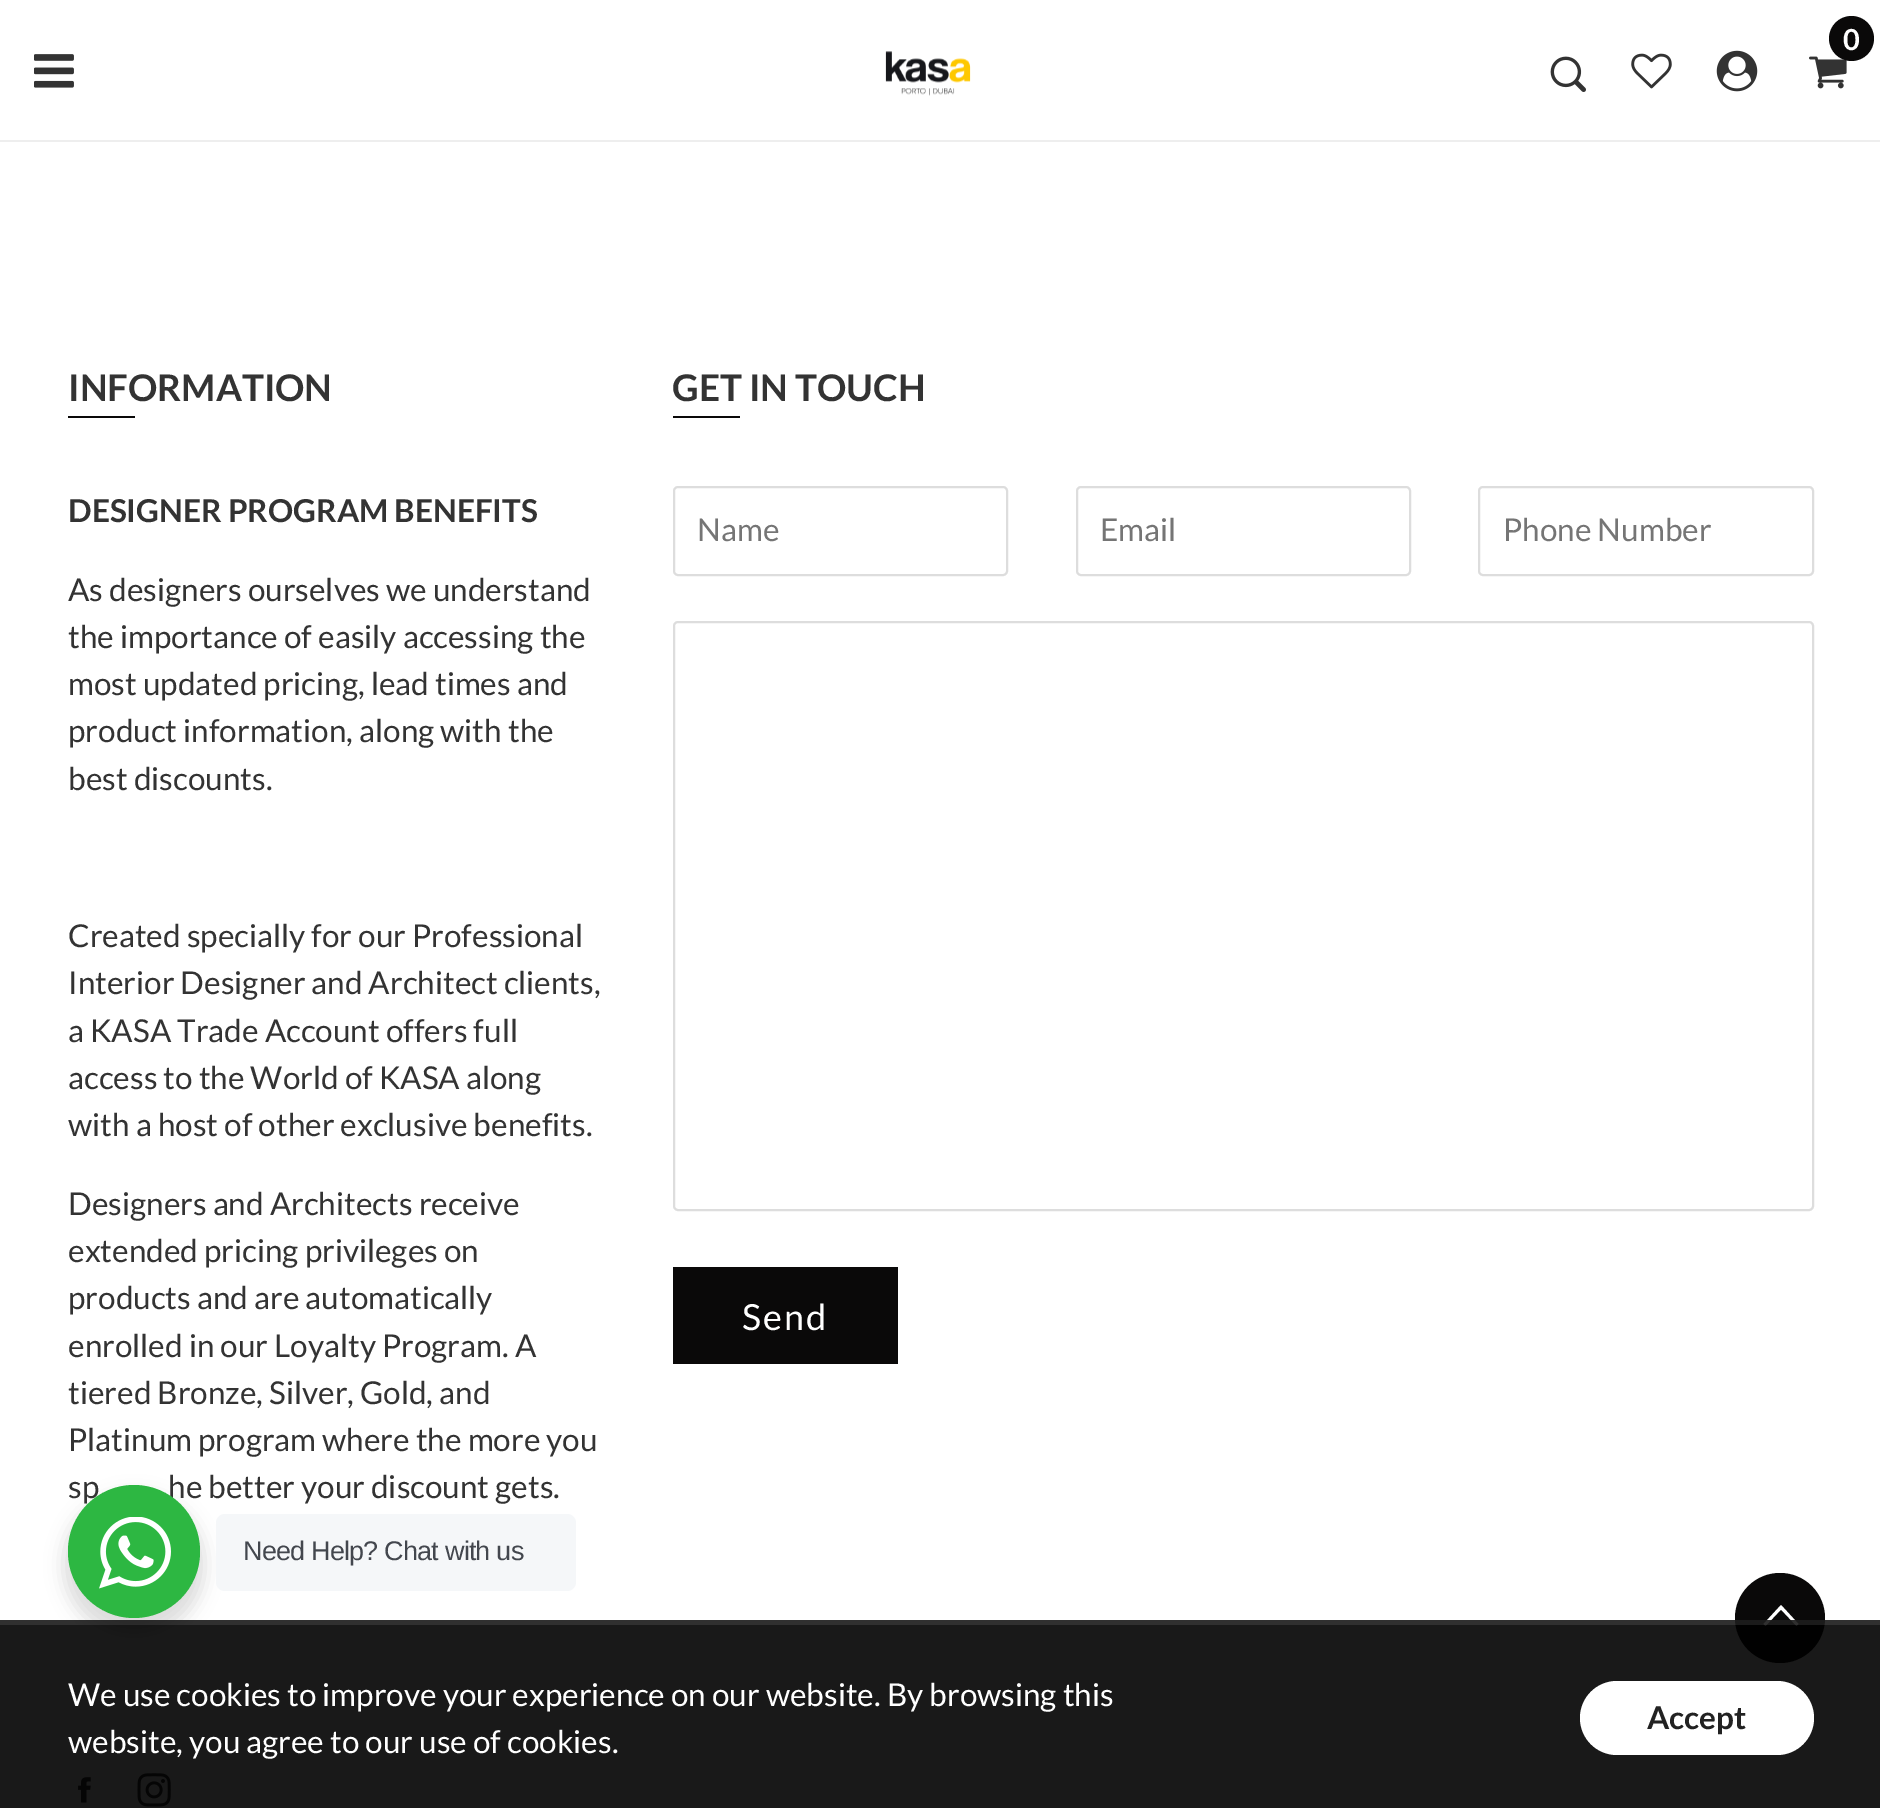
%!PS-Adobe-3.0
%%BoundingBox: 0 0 1880 1808
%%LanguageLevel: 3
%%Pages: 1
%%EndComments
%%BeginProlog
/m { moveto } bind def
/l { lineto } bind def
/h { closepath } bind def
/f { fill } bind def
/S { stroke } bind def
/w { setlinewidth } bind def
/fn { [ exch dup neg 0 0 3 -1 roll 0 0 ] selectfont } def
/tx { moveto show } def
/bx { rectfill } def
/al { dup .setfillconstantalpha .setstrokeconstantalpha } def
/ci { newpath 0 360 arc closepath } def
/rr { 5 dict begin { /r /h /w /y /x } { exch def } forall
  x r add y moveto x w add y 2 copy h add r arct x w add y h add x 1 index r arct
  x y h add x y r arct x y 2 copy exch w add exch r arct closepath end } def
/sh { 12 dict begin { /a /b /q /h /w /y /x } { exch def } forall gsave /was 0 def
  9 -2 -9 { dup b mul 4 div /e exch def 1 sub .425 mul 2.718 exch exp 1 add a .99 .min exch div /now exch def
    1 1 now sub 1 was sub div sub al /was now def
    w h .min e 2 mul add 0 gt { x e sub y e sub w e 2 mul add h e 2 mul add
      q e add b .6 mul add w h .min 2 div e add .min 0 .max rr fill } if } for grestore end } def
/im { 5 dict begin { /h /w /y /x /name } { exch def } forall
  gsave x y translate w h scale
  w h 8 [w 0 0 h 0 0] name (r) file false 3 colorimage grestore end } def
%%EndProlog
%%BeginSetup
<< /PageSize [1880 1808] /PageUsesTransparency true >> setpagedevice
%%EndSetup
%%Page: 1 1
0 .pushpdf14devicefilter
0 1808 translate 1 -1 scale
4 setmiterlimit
1 setgray
0 0 1880 1808 bx
0.933 setgray
0 140 1880 2 bx
(image0.raw) 1809 56 38 33 im
0.039 0.035 0.035 setrgbcolor
1851.5 38.5 22.5 ci f
/Lato-Bold 29 fn
1 setgray
(0) 1843 50 tx
(image1.raw) 1550 56 36 36 im
(image2.raw) 1631 53 41 36 im
(image3.raw) 1716 50 42 42 im
(image4.raw) 34 54 40 34 im
(image5.raw) 885 51 86 45 im
/Lato-Bold 36.75 fn
0.2 setgray
(INFORMATION) 68 401 tx
0.039 0.035 0.035 setrgbcolor
68 416 67 2 bx
/Lato-Bold 31.5 fn
0.2 setgray
(DESIGNER PROGRAM BENEFITS) 68 522 tx
/Lato-Regular 31.5 fn
(As designers ourselves we understand) 68 601 tx
(the importance of easily accessing the) 68 648 tx
(most updated pricing, lead times and) 68 695 tx
(product information, along with the) 68 742 tx
(best discounts.) 68 790 tx
(Created specially for our Professional) 68 947 tx
(Interior Designer and Architect clients,) 68 994 tx
(a KASA Trade Account offers full) 68 1042 tx
(access to the World of KASA along) 68 1089 tx
(with a host of other exclusive benefits.) 68 1136 tx
(Designers and Architects receive) 68 1215 tx
(extended pricing privileges on) 68 1262 tx
(products and are automatically) 68 1309 tx
(enrolled in our Loyalty Program. A) 68 1357 tx
(tiered Bronze, Silver, Gold, and) 68 1404 tx
(Platinum program where the more you) 68 1451 tx
(sp) 68 1498 tx
(he better your discount gets.) 168 1498 tx
(image6.raw) 78 1777 13 26 im
(image7.raw) 137 1773 34 34 im
/Lato-Bold 36.75 fn
(GET IN TOUCH) 672 401 tx
0.039 0.035 0.035 setrgbcolor
673 416 67 2 bx
0.867 setgray
2 w
674 487 333 88 4 rr S
/Lato-Regular 31.5 fn
0.459 setgray
(Name) 697 541 tx
0.867 setgray
1077 487 333 88 4 rr S
0.459 setgray
(Email) 1100 541 tx
0.867 setgray
1479 487 334 88 4 rr S
0.459 setgray
(Phone Number) 1503 541 tx
0.867 setgray
674 622 1139 588 4 rr S
0.039 0.035 0.035 setrgbcolor
673 1267 225 97 bx
/Lato-Regular 36 fn
1 setgray
742 1330 m 2 0 (Send) ashow
0.039 0.035 0.035 setrgbcolor
1780 1618 45 ci f
1 setgray
1796.5 1626 m 1798.5 1624 l 1781 1605 l 1763.5 1624 l 1765.5 1626 l 1781 1609.5 l h f
0.9 al
0 setgray
0 1620 1880 188 bx
0.1 al
1 setgray
0 1620 1880 5 bx
1 al
0 setgray
63 1494 142 142 71 9 0.14 sh
0.176 0.718 0.259 setrgbcolor
68 1485 132 133 66 rr f
(image8.raw) 99 1517 72 72 im
0.961 0.969 0.976 setrgbcolor
216 1514 360 77 9 rr f
/LiberationSans-Regular 27 fn
0.263 0.278 0.306 setrgbcolor
243 1560 m -0.8 0 (Need Help? Chat with us) ashow
/Lato-Regular 31.5 fn
1 setgray
(We use cookies to improve your experience on our website. By browsing this) 68 1706 tx
(website, you agree to our use of cookies.) 68 1753 tx
1580 1681 234 74 37 rr f
/Lato-Bold 31.5 fn
0.133 setgray
(Accept) 1647 1729 tx
.poppdf14devicefilter showpage
%%EOF
